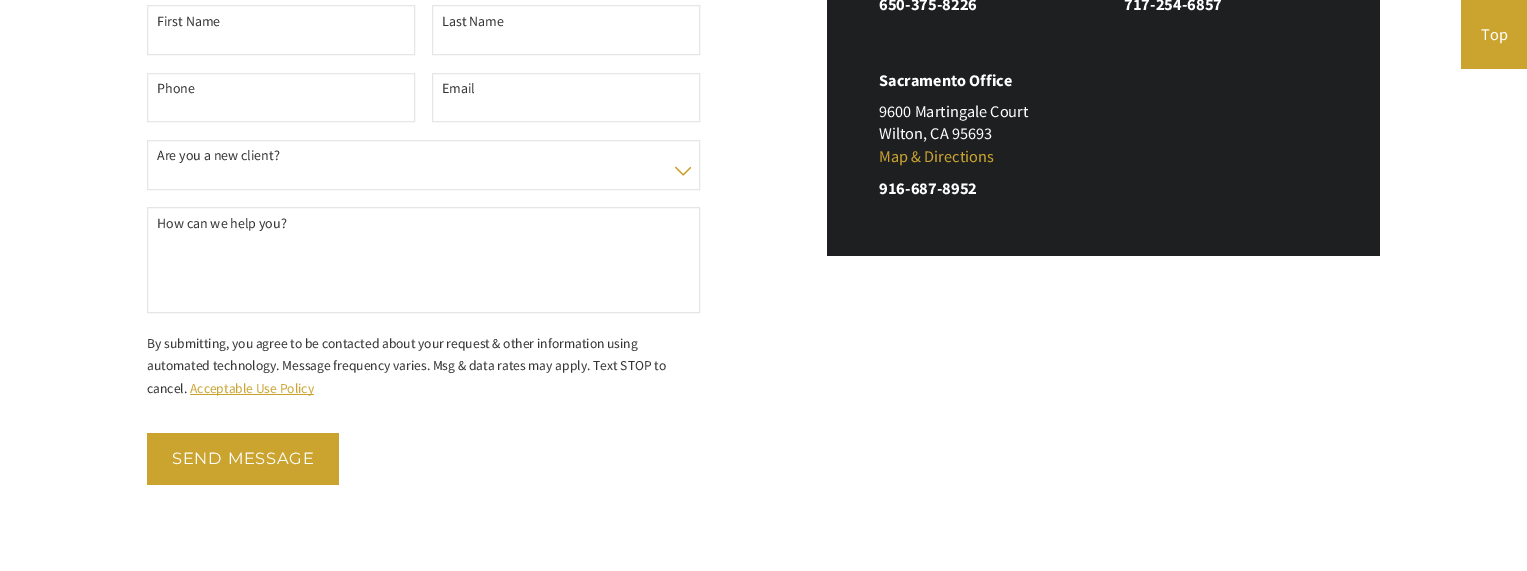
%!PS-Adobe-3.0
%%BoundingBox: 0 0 1527 571
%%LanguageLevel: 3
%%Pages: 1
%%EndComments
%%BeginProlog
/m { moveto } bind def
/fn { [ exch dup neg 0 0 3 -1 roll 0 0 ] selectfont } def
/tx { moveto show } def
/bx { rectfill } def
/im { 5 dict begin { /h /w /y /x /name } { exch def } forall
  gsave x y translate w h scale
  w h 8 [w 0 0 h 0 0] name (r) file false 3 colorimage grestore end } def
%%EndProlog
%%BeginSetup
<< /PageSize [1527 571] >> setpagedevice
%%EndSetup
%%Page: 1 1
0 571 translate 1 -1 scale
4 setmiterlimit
1 setgray
0 0 1527 571 bx
0.902 setgray
147.5 5.5 267 49 rectstroke
/SourceSansPro-Regular 14 fn
0.204 setgray
(First Name) 157 26 tx
0.902 setgray
432.5 5.5 267 49 rectstroke
0.204 setgray
(Last Name) 442 26 tx
0.902 setgray
147.5 73.5 267 48 rectstroke
0.204 setgray
(Phone) 157 93 tx
0.902 setgray
432.5 73.5 267 48 rectstroke
0.204 setgray
(Email) 442 93 tx
0.902 setgray
147.5 140.5 552 49 rectstroke
0.204 setgray
(Are you a new client?) 157 160 tx
(image0.raw) 675 166 16 10 im
0.902 setgray
147.5 207.5 552 105 rectstroke
0.204 setgray
(How can we help you?) 157 228 tx
/SourceSansPro-Regular 13.55 fn
(By submitting, you agree to be contacted about your request & other information using) 147 348 tx
(automated technology. Message frequency varies. Msg & data rates may apply. Text STOP to) 147 370 tx
(cancel.) 147 393 tx
0.796 0.643 0.188 setrgbcolor
190 394 124 1 bx
(Acceptable Use Policy) 190 393 tx
147 433 192 52 bx
/Montserrat-Regular 16.25 fn
1 setgray
172 464 m 0.75 0 (SEND MESSAGE) ashow
0.118 0.122 0.129 setrgbcolor
827 0 553 256 bx
/SourceSansPro-Bold 16.5 fn
1 setgray
(650-375-8226) 879 10 tx
(717-254-6857) 1124 10 tx
/SourceSansPro-Bold 16.25 fn
(Sacramento Office) 879 86 tx
/SourceSansPro-Regular 16.25 fn
(9600 Martingale Court) 879 117 tx
(Wilton, CA 95693) 879 139 tx
0.796 0.643 0.188 setrgbcolor
(Map & Directions) 879 162 tx
/SourceSansPro-Bold 16.5 fn
1 setgray
(916-687-8952) 879 194 tx
0.796 0.643 0.188 setrgbcolor
1461 0 66 69 bx
/SourceSansPro-Regular 16.25 fn
1 setgray
(Top) 1481 40 tx
showpage
%%EOF
